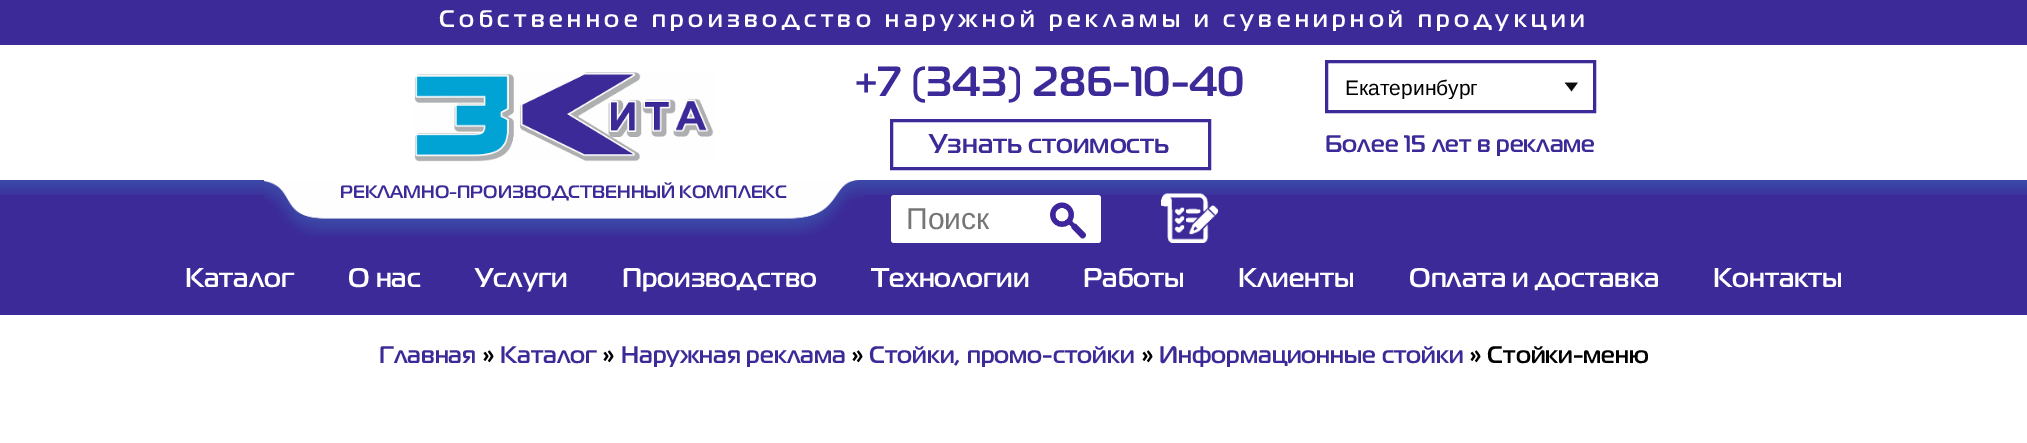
%!PS-Adobe-3.0
%%BoundingBox: 0 0 2027 443
%%LanguageLevel: 3
%%Pages: 1
%%EndComments
%%BeginProlog
/m { moveto } bind def
/f { fill } bind def
/q { gsave } bind def
/Q { grestore } bind def
/w { setlinewidth } bind def
/fn { [ exch dup neg 0 0 3 -1 roll 0 0 ] selectfont } def
/tx { moveto show } def
/bx { rectfill } def
/rr { 5 dict begin { /r /h /w /y /x } { exch def } forall
  x r add y moveto x w add y 2 copy h add r arct x w add y h add x 1 index r arct
  x y h add x y r arct x y 2 copy exch w add exch r arct closepath end } def
/im { 5 dict begin { /h /w /y /x /name } { exch def } forall
  gsave x y translate w h scale
  w h 8 [w 0 0 h 0 0] name (r) file false 3 colorimage grestore end } def
%%EndProlog
%%BeginSetup
<< /PageSize [2027 443] >> setpagedevice
%%EndSetup
%%Page: 1 1
0 443 translate 1 -1 scale
4 setmiterlimit
1 setgray
0 0 2027 443 bx
0.231 0.165 0.596 setrgbcolor
0 0 2027 45 bx
/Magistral-Medium 24 fn
1 setgray
439 27 m 4.5 0 (Собственное производство наружной рекламы и сувенирной продукции) ashow
(image0.raw) 0 180 2027 15 im
/Magistral-Medium 42 fn
0.231 0.165 0.596 setrgbcolor
(+7 \(343\) 286-10-40) 854 96 tx
3 w
891.5 120.5 318 48 rectstroke
/Magistral-Medium 27 fn
(Узнать стоимость) 929 153 tx
(image1.raw) 1564 82 14 10 im
1326.5 61.5 268 50 rectstroke
q
1346 75 217 24 rectclip
/LiberationSans-Regular 21 fn
0 setgray
(Екатеринбург) 1345 95 tx
Q
/Magistral-Medium 24 fn
(Более 15 лет в рекламе) 1325 152 tx
0 195 2027 120 bx
(image2.raw) 264 180 600 56 im
(image3.raw) 414 72 300 90 im
/Magistral-Medium 18 fn
(РЕКЛАМНО-ПРОИЗВОДСТВЕННЫЙ КОМПЛЕКС) 340 198 tx
1 setgray
891 195 210 48 3 rr f
/LiberationSans-Regular 30 fn
0.459 setgray
(Поиск) 906 229 tx
(image4.raw) 1050 202 36 37 im
(image5.raw) 1161 193 57 50 im
/Magistral-Medium 27 fn
1 setgray
(Каталог) 185 287 tx
(О нас) 348 287 tx
(Услуги) 475 287 tx
(Производство) 622 287 tx
(Технологии) 871 287 tx
(Работы) 1083 287 tx
(Клиенты) 1238 287 tx
(Оплата и доставка) 1409 287 tx
(Контакты) 1713 287 tx
/Magistral-Medium 24 fn
0.231 0.165 0.596 setrgbcolor
(Главная) 379 363 tx
0 setgray
(») 482 363 tx
0.231 0.165 0.596 setrgbcolor
(Каталог) 500 363 tx
0 setgray
(») 602 363 tx
0.231 0.165 0.596 setrgbcolor
(Наружная реклама) 621 363 tx
0 setgray
(») 851 363 tx
0.231 0.165 0.596 setrgbcolor
(Стойки, промо-стойки) 869 363 tx
0 setgray
(») 1141 363 tx
0.231 0.165 0.596 setrgbcolor
(Информационные стойки) 1159 363 tx
0 setgray
(» Стойки-меню) 1469 363 tx
showpage
%%EOF
